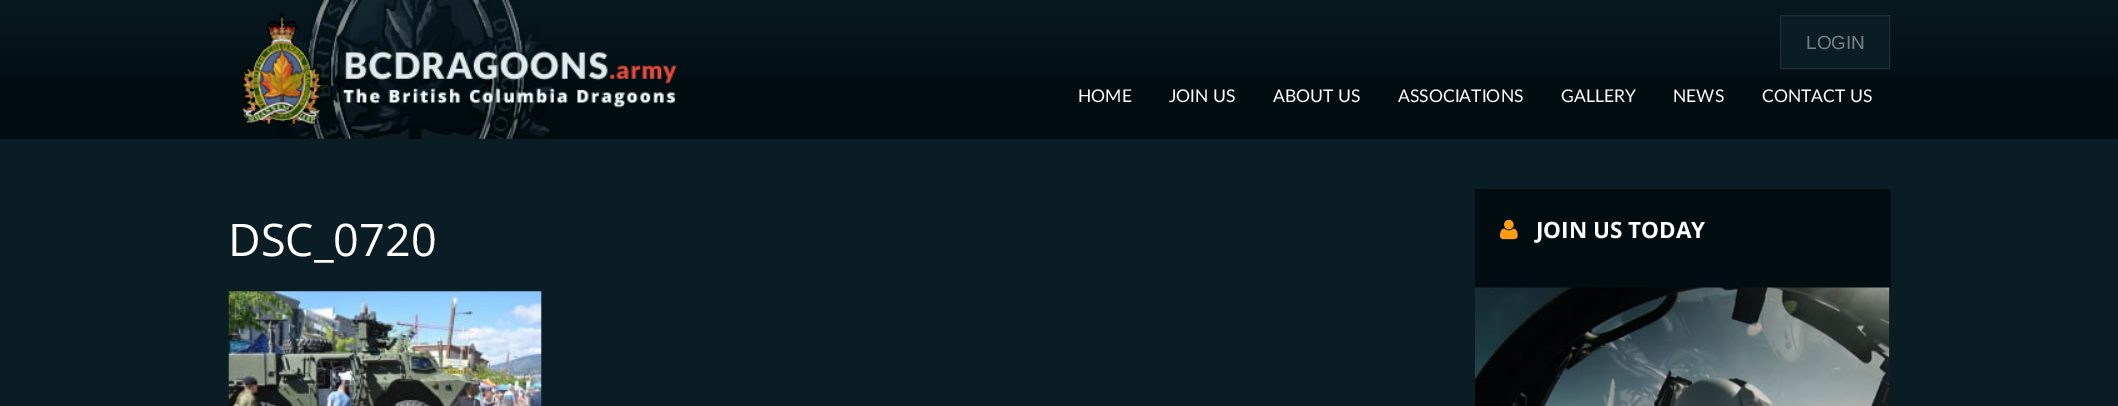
%!PS-Adobe-3.0
%%BoundingBox: 0 0 2118 406
%%LanguageLevel: 3
%%Pages: 1
%%EndComments
%%BeginProlog
/m { moveto } bind def
/l { lineto } bind def
/h { closepath } bind def
/f { fill } bind def
/S { stroke } bind def
/q { gsave } bind def
/Q { grestore } bind def
/fn { [ exch dup neg 0 0 3 -1 roll 0 0 ] selectfont } def
/tx { moveto show } def
/bx { rectfill } def
/im { 5 dict begin { /h /w /y /x /name } { exch def } forall
  gsave x y translate w h scale
  w h 8 [w 0 0 h 0 0] name (r) file false 3 colorimage grestore end } def
%%EndProlog
%%BeginSetup
<< /PageSize [2118 406] >> setpagedevice
%%EndSetup
%%Page: 1 1
0 406 translate 1 -1 scale
4 setmiterlimit
0.039 0.114 0.141 setrgbcolor
0 0 2118 406 bx
(image0.raw) 0 0 2118 139 im
(image1.raw) 241 12 436 114 im
1780.5 15.5 m 1889.5 15.5 l 1889.5 68.5 l 1780.5 68.5 l h q f Q
0.125 0.184 0.208 setrgbcolor
S
/LiberationSans-Regular 19 fn
0.471 0.49 0.498 setrgbcolor
(LOGIN) 1806 49 tx
/Lato-Regular 17.5 fn
1 setgray
(HOME) 1078 102 tx
(JOIN US) 1169 102 tx
(ABOUT US) 1273 102 tx
(ASSOCIATIONS) 1398 102 tx
(GALLERY) 1561 102 tx
(NEWS) 1673 102 tx
(CONTACT US) 1762 102 tx
/OpenSans-Regular 45 fn
(DSC_0720) 228 256 tx
(image2.raw) 228 291 314 115 im
0.004 0.051 0.067 setrgbcolor
1475 189 416 99 bx
(image3.raw) 1500 219 18 21 im
/OpenSans-Bold 22.5 fn
1 setgray
(JOIN US TODAY) 1536 238 tx
(image4.raw) 1475 287 416 119 im
showpage
%%EOF
